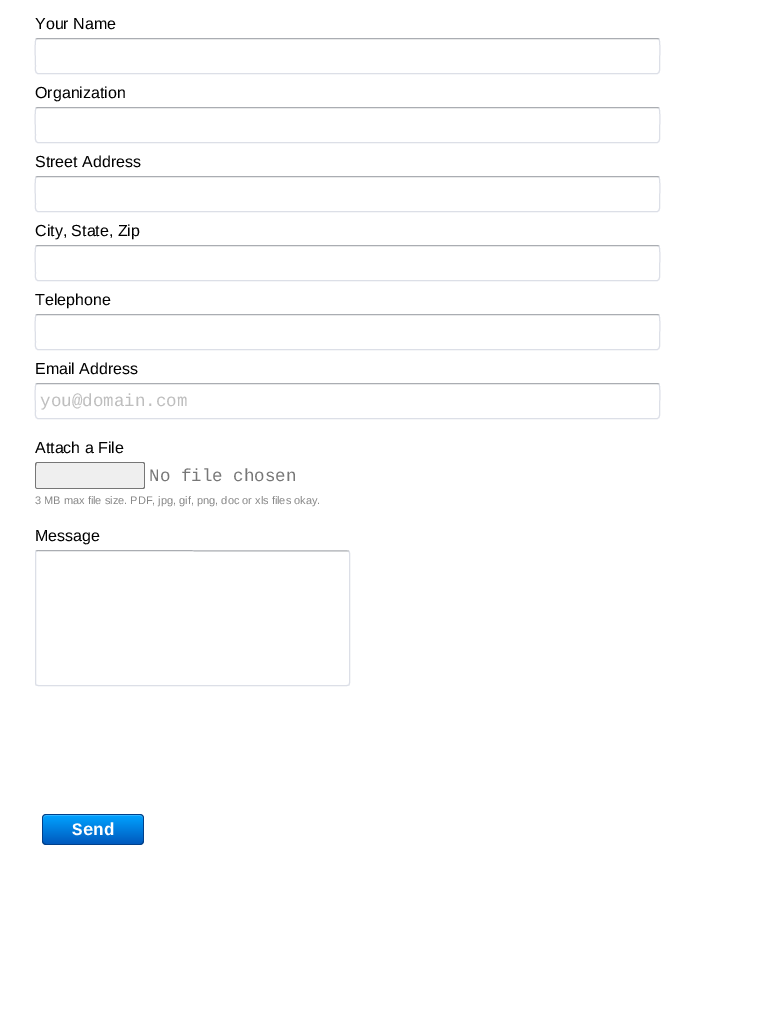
%!PS-Adobe-3.0
%%BoundingBox: 0 0 782 1028
%%LanguageLevel: 3
%%Pages: 1
%%EndComments
%%BeginProlog
/m { moveto } bind def
/l { lineto } bind def
/c { curveto } bind def
/h { closepath } bind def
/f { fill } bind def
/S { stroke } bind def
/fn { [ exch dup neg 0 0 3 -1 roll 0 0 ] selectfont } def
/tx { moveto show } def
/bx { rectfill } def
/im { 5 dict begin { /h /w /y /x /name } { exch def } forall
  gsave x y translate w h scale
  w h 8 [w 0 0 h 0 0] name (r) file false 3 colorimage grestore end } def
%%EndProlog
%%BeginSetup
<< /PageSize [782 1028] >> setpagedevice
%%EndSetup
%%Page: 1 1
0 1028 translate 1 -1 scale
4 setmiterlimit
1 setgray
0 0 782 1028 bx
/LiberationSans-Regular 16 fn
0 setgray
(Your Name) 35 29 tx
0.667 0.678 0.698 setrgbcolor
36 39 m 38 38.5 l 657 38.5 l 659 39 l S
0.863 0.875 0.906 setrgbcolor
659 39 m 660.5 41 659.5 62 659.5 66 c 659.5 67.5 660.5 73.5 657 73.5 c 38 73.5 l 34.5 73.5 35.5 67.5 35.5 66 c 35.5 62 34.5 41 36 39 c S
0 setgray
(Organization) 35 98 tx
0.667 0.678 0.698 setrgbcolor
36 108 m 38 107.5 l 657 107.5 l 659 108 l S
0.863 0.875 0.906 setrgbcolor
659 108 m 660.5 110 659.5 131 659.5 135 c 659.5 136.5 660.5 142.5 657 142.5 c 38 142.5 l 34.5 142.5 35.5 136.5 35.5 135 c 35.5 131 34.5 110 36 108 c S
0 setgray
(Street Address) 35 167 tx
0.667 0.678 0.698 setrgbcolor
36 177 m 38 176.5 l 657 176.5 l 659 177 l S
0.863 0.875 0.906 setrgbcolor
659 177 m 660.5 179 659.5 200 659.5 204 c 659.5 205.5 660.5 211.5 657 211.5 c 38 211.5 l 34.5 211.5 35.5 205.5 35.5 204 c 35.5 200 34.5 179 36 177 c S
0 setgray
(City, State, Zip) 35 236 tx
0.667 0.678 0.698 setrgbcolor
36 246 m 38 245.5 l 657 245.5 l 659 246 l S
0.863 0.875 0.906 setrgbcolor
659 246 m 660.5 248 659.5 269 659.5 273 c 659.5 274.5 660.5 280.5 657 280.5 c 38 280.5 l 34.5 280.5 35.5 274.5 35.5 273 c 35.5 269 34.5 248 36 246 c S
0 setgray
(Telephone) 35 305 tx
0.667 0.678 0.698 setrgbcolor
36 315 m 38 314.5 l 657 314.5 l 659 315 l S
0.863 0.875 0.906 setrgbcolor
659 315 m 660.5 317 659.5 338 659.5 342 c 659.5 343.5 660.5 349.5 657 349.5 c 38 349.5 l 34.5 349.5 35.5 343.5 35.5 342 c 35.5 338 34.5 317 36 315 c S
0 setgray
(Email Address) 35 374 tx
0.667 0.678 0.698 setrgbcolor
36 384 m 38 383.5 l 657 383.5 l 659 384 l S
0.863 0.875 0.906 setrgbcolor
659 384 m 660.5 386 659.5 407 659.5 411 c 659.5 412.5 660.5 418.5 657 418.5 c 38 418.5 l 34.5 418.5 35.5 412.5 35.5 411 c 35.5 407 34.5 386 36 384 c S
/LiberationMono-Regular 17.5 fn
0.745 setgray
(you@domain.com) 40 406 tx
/LiberationSans-Regular 16 fn
0 setgray
(Attach a File) 35 453 tx
0.937 setgray
38 462 m 143 462 l 144 462 145 463 145 464 c 145 487 l 145 488 144 489 143 489 c 38 489 l 36.5 489 35 487.5 35 486 c 35 465 l 35 463.5 36.5 462 38 462 c h f
0.463 setgray
38 462 m 36 462 35 463 35 465 c 35 486 l 35 488 36 489 38 489 c 143 489 l 144 489 145 488 145 487 c 145 464 l 145 463 144 462 143 462 c h 37 463 m 35 463 36 479 36 483 c 36 485 35 488 37 488 c 143 488 l 144 487 l 144 464 l 143 463 l h eofill
/LiberationMono-Regular 17.5 fn
0.467 setgray
(No file chosen) 149 481 tx
/LiberationSans-Regular 11 fn
0.533 setgray
(3 MB max file size. PDF, jpg, gif, png, doc or xls files okay.) 35 504 tx
/LiberationSans-Regular 16 fn
0 setgray
(Message) 35 541 tx
0.667 0.678 0.698 setrgbcolor
36 551 m 38 550.5 l 348 551 l 349 551 l S
0.863 0.875 0.906 setrgbcolor
349 551 m 349.5 553 l 349.5 683 l 349 685 l 347 685.5 l 38 685.5 l 36 685 l 35.5 683 l 35.5 553 l 36 551 l S
(image0.raw) 42 814 102 31 im
/LiberationMono-Bold 17.5 fn
1 setgray
(Send) 72 835 tx
showpage
%%EOF
